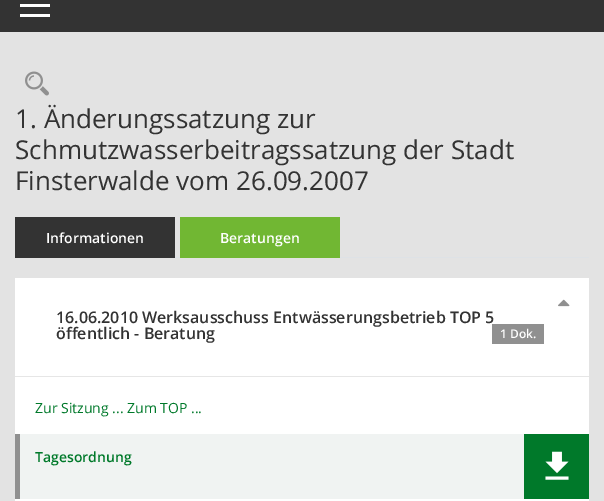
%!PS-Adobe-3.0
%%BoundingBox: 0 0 604 501
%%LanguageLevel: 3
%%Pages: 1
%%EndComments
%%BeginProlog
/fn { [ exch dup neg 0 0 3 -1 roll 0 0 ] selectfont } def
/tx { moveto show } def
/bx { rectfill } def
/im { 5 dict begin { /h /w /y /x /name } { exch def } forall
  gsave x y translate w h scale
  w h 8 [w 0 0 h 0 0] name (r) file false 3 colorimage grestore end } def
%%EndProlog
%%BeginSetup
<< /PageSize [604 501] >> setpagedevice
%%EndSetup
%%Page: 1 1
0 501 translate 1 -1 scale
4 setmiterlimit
0.89 setgray
0 0 604 501 bx
0.2 setgray
0 0 604 32 bx
1 setgray
20 4 30 3 bx
20 14 30 3 bx
(image0.raw) 25 71 24 25 im
/OpenSans-Regular 26 fn
0.2 setgray
(1. Änderungssatzung zur) 15 128 tx
(Schmutzwasserbeitragssatzung der Stadt) 15 159 tx
(Finsterwalde vom 26.09.2007) 15 190 tx
0.871 0.886 0.902 setrgbcolor
175 257 414 1 bx
0.2 setgray
15 217 160 41 bx
/OpenSans-SemiBold 14 fn
1 setgray
(Informationen) 46 243 tx
0.443 0.718 0.2 setrgbcolor
180 217 160 41 bx
1 setgray
(Beratungen) 220 243 tx
15 278 574 223 bx
0.902 setgray
15 376 574 1 bx
(image1.raw) 558 299 12 8 im
/OpenSans-SemiBold 16 fn
0.2 setgray
(16.06.2010 Werksausschuss Entwässerungsbetrieb TOP 5) 56 323 tx
(öffentlich - Beratung) 56 339 tx
0.565 setgray
492 324 52 20 bx
/OpenSans-SemiBold 12 fn
1 setgray
(1 Dok.) 500 338 tx
/OpenSans-Regular 14 fn
0 0.475 0.165 setrgbcolor
(Zur Sitzung ... Zum TOP ...) 35 413 tx
0.941 0.953 0.949 setrgbcolor
20 434 504 65 bx
0.565 setgray
15 434 5 65 bx
/OpenSans-SemiBold 14 fn
0 0.475 0.165 setrgbcolor
(Tagesordnung) 35 462 tx
524 434 65 65 bx
(image2.raw) 545 451 24 29 im
showpage
%%EOF
